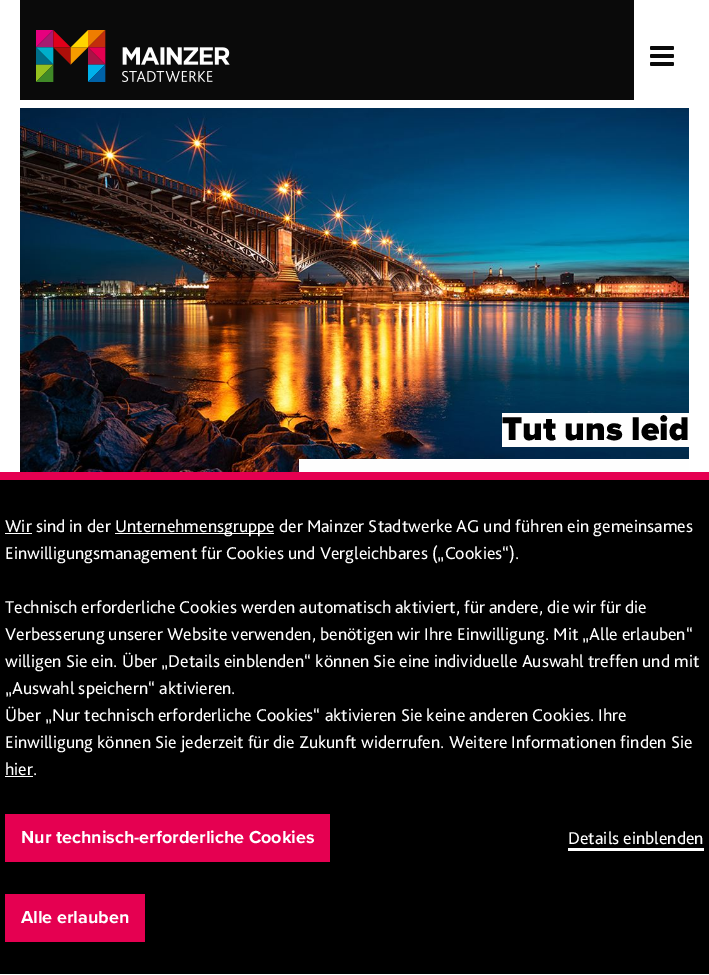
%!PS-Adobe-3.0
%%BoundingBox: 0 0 709 975
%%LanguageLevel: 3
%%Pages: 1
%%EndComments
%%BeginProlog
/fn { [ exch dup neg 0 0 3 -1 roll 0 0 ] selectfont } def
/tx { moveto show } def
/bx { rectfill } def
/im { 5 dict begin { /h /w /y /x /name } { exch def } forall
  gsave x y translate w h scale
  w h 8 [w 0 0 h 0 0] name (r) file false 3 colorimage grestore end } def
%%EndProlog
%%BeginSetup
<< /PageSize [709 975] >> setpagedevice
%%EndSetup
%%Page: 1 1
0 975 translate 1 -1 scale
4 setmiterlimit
1 setgray
0 0 709 975 bx
0.039 setgray
20 0 614 100 bx
(image0.raw) 36 30 194 52 im
(image1.raw) 650 46 24 20 im
(image2.raw) 20 108 669 364 im
0.996 setgray
502 413 187 34 bx
/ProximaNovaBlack-Regular 34 fn
0 setgray
(Tut uns leid) 502 440 tx
0.996 setgray
299 459 390 13 bx
0 setgray
0 480 709 494 bx
0.898 0 0.318 setrgbcolor
0 472 709 8 bx
/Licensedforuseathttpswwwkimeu-Regular 18 fn
1 setgray
(Wir sind in der) 5 532 tx
5 533 27 1 bx
115 533 159 1 bx
(Unternehmensgruppe der Mainzer Stadtwerke AG und führen ein gemeinsames) 115 532 tx
(Einwilligungsmanagement für Cookies und Vergleichbares \(„Cookies“\).) 5 559 tx
(Technisch erforderliche Cookies werden automatisch aktiviert, für andere, die wir für die) 5 613 tx
(Verbesserung unserer Website verwenden, benötigen wir Ihre Einwilligung. Mit „Alle erlauben“) 5 640 tx
(willigen Sie ein. Über „Details einblenden“ können Sie eine individuelle Auswahl treffen und mit) 5 667 tx
(„Auswahl speichern“ aktivieren.) 5 694 tx
(Über „Nur technisch erforderliche Cookies“ aktivieren Sie keine anderen Cookies. Ihre) 5 721 tx
(Einwilligung können Sie jederzeit für die Zukunft widerrufen. Weitere Informationen finden Sie) 5 748 tx
(hier.) 5 775 tx
5 776 28 1 bx
0.898 0 0.318 setrgbcolor
5 814 325 48 bx
/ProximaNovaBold-Regular 18 fn
1 setgray
(Nur technisch-erforderliche Cookies) 21 843 tx
568 848 136 3 bx
/Licensedforuseathttpswwwkimeu-Regular 18 fn
(Details einblenden) 568 844 tx
0.898 0 0.318 setrgbcolor
5 894 140 48 bx
/ProximaNovaBold-Regular 18 fn
1 setgray
(Alle erlauben) 21 923 tx
showpage
%%EOF
